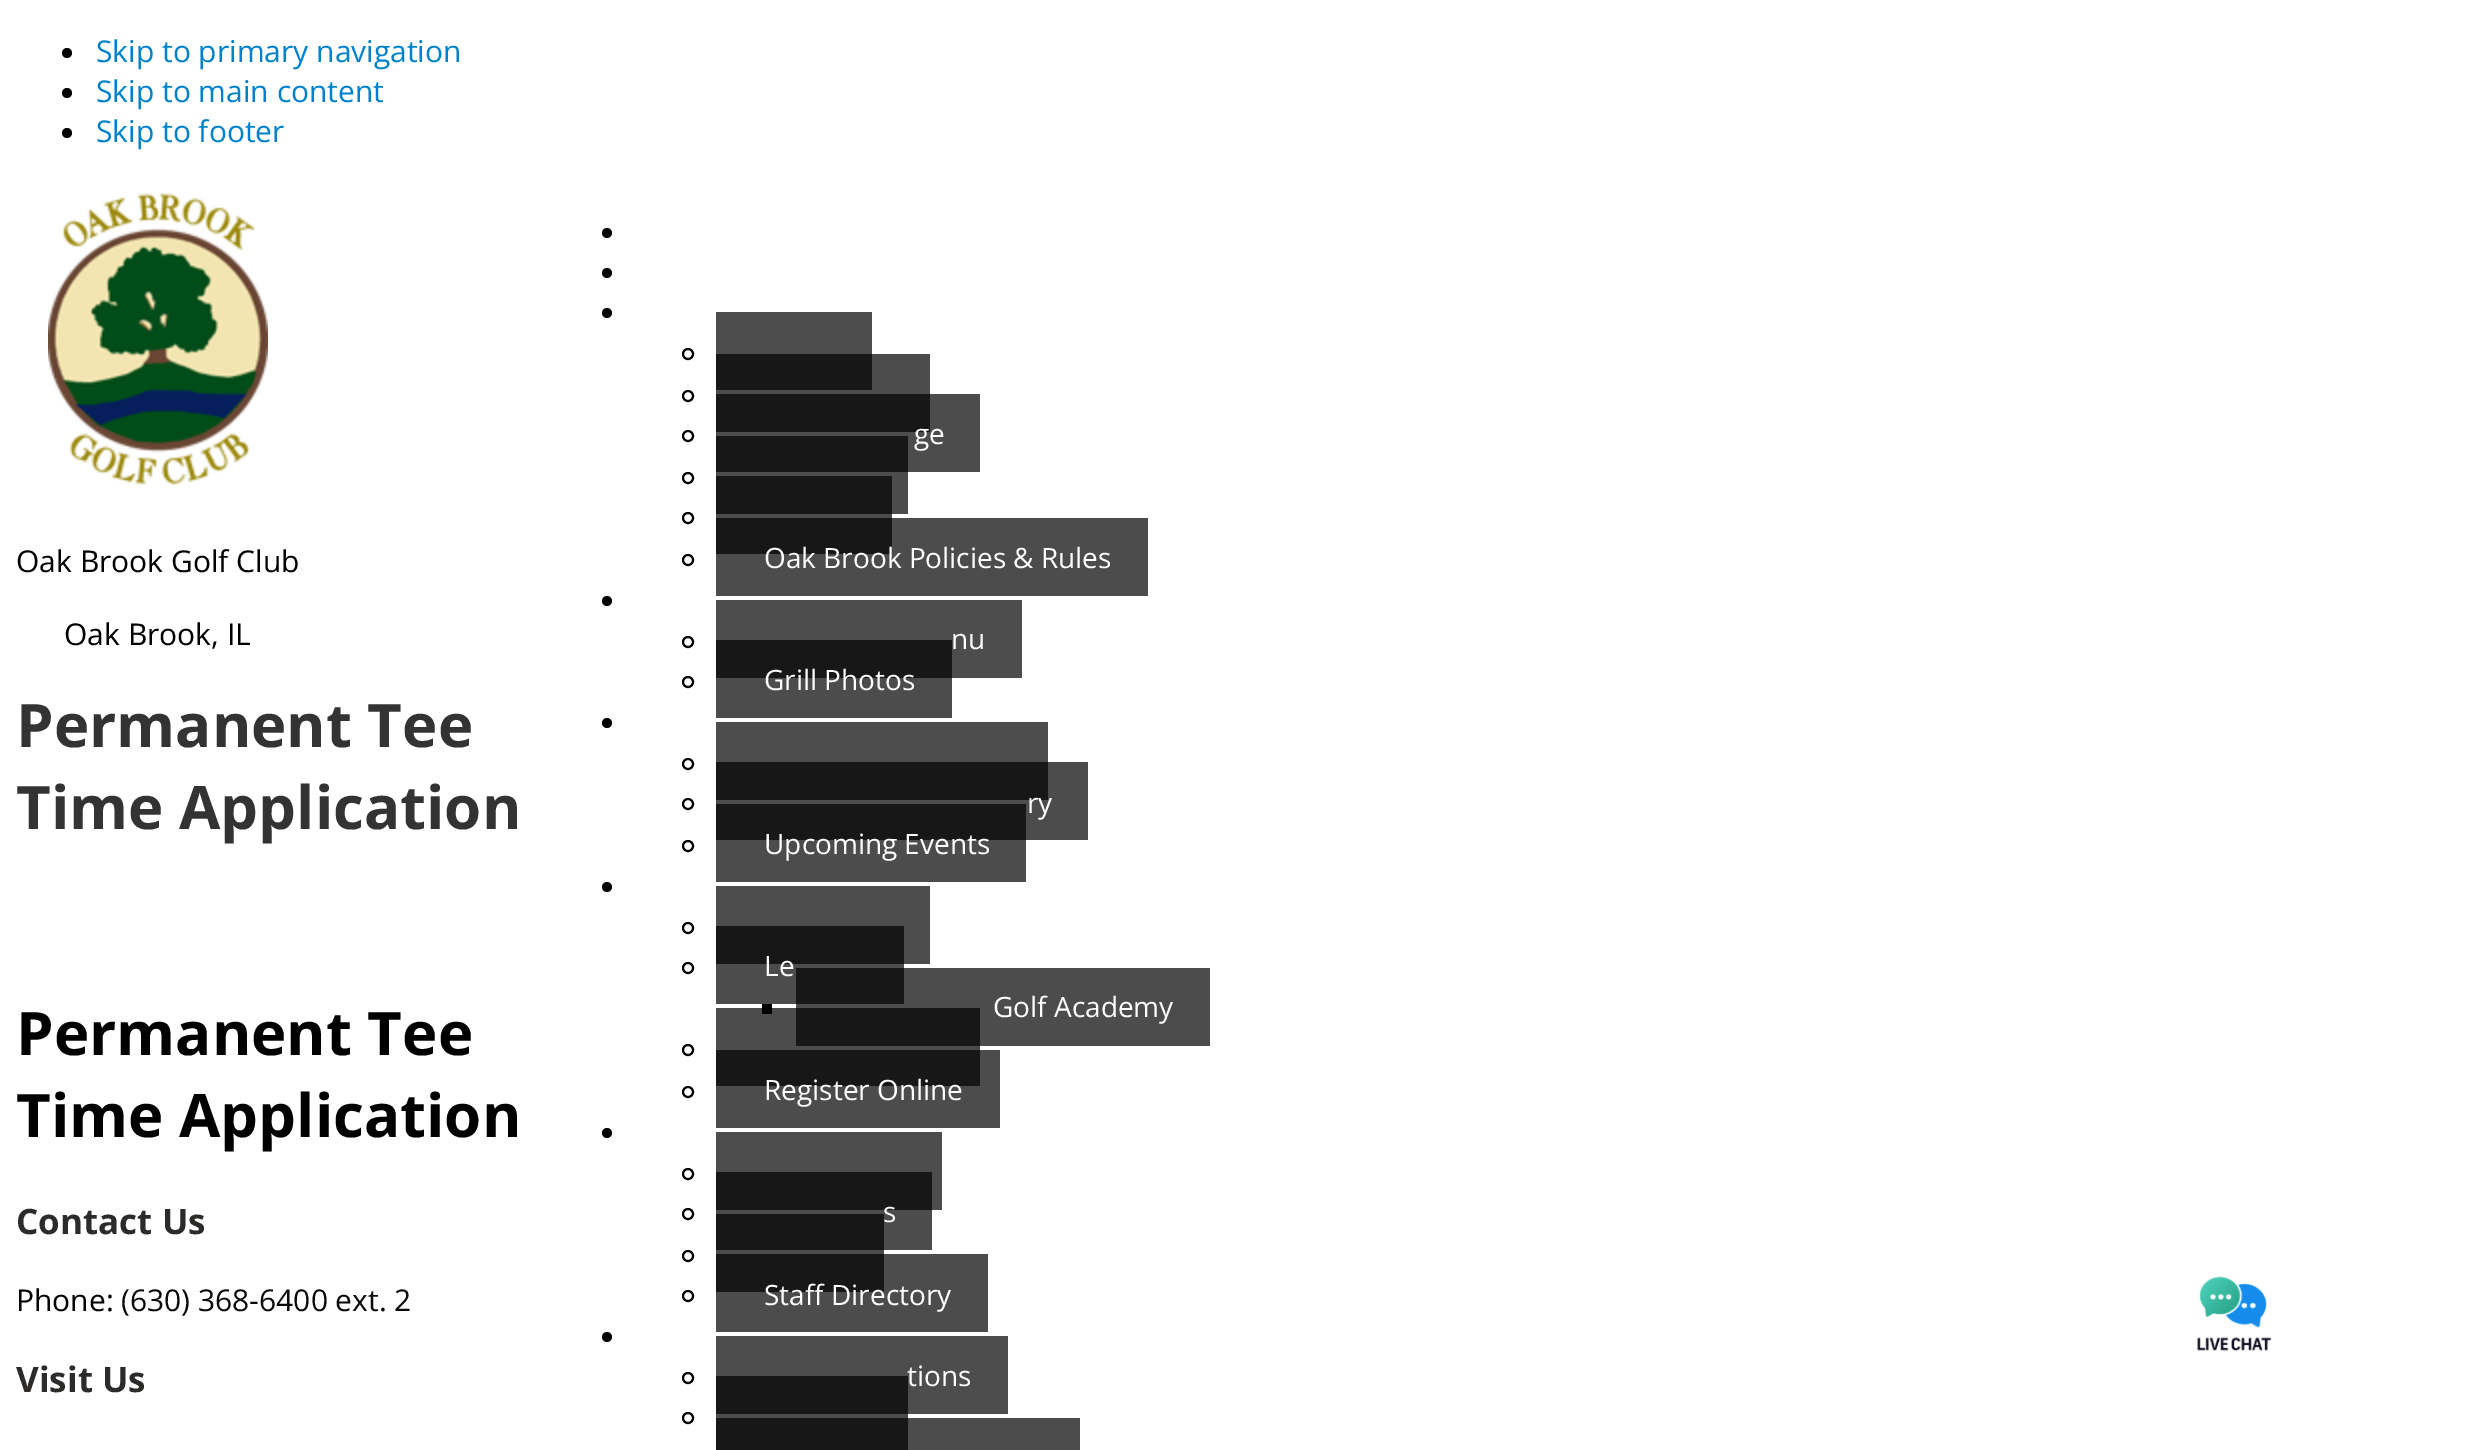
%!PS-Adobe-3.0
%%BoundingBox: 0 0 2467 1450
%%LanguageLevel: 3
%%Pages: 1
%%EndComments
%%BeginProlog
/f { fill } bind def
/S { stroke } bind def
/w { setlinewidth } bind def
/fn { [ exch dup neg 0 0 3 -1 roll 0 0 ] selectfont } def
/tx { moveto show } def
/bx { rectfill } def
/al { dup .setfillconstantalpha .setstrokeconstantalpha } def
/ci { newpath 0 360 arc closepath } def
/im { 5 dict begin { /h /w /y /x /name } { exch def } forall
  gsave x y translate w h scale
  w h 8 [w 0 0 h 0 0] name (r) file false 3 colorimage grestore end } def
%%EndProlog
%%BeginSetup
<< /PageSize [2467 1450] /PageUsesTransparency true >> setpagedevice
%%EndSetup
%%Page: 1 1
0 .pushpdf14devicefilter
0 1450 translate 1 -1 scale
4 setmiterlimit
1 setgray
0 0 2467 1450 bx
0 setgray
67 53 5 ci f
/OpenSans-Regular 30 fn
0 0.506 0.8 setrgbcolor
(Skip to primary navigation) 96 62 tx
0 setgray
67 93 5 ci f
0 0.506 0.8 setrgbcolor
(Skip to main content) 96 102 tx
0 setgray
67 133 5 ci f
0 0.506 0.8 setrgbcolor
(Skip to footer) 96 142 tx
(image0.raw) 48 193 220 292 im
0 setgray
(Oak Brook Golf Club) 16 572 tx
(Oak Brook, IL) 64 645 tx
607 233 5 ci f
607 273 5 ci f
607 313 5 ci f
2 w
688 354 5 ci S
0.302 setgray
716 312 156 78 bx
0 setgray
688 396 5 ci S
0.7 al
716 354 214 78 bx
1 al
688 478 5 ci S
0.7 al
716 394 264 78 bx
716 436 192 78 bx
1 al
688 436 5 ci S
/OpenSans-Regular 28 fn
1 setgray
(ge) 914 444 tx
0 setgray
688 518 5 ci S
0.7 al
716 476 176 78 bx
1 al
688 560 5 ci S
0.7 al
716 518 432 78 bx
1 al
1 setgray
(Oak Brook Policies & Rules) 764 568 tx
0 setgray
607 601 5 ci f
688 642 5 ci S
0.302 setgray
716 600 306 78 bx
1 setgray
(nu) 951 649 tx
0 setgray
688 682 5 ci S
0.7 al
716 640 236 78 bx
1 al
1 setgray
(Grill Photos) 764 690 tx
0 setgray
607 723 5 ci f
688 764 5 ci S
0.302 setgray
716 722 332 78 bx
0 setgray
688 804 5 ci S
0.7 al
716 762 372 78 bx
1 al
1 setgray
(ry) 1027 813 tx
0 setgray
688 846 5 ci S
0.7 al
716 804 310 78 bx
1 al
1 setgray
(Upcoming Events) 764 854 tx
0 setgray
607 887 5 ci f
688 928 5 ci S
0.302 setgray
716 886 214 78 bx
0 setgray
688 968 5 ci S
0.7 al
716 926 188 78 bx
1 al
1 setgray
(Le) 764 976 tx
0 setgray
762 1004 10 10 bx
0.7 al
796 968 414 78 bx
1 al
1 setgray
(Golf Academy) 993 1017 tx
0 setgray
688 1050 5 ci S
0.7 al
716 1008 264 78 bx
1 al
688 1092 5 ci S
0.7 al
716 1050 284 78 bx
1 al
1 setgray
(Register Online) 764 1100 tx
0 setgray
607 1133 5 ci f
688 1174 5 ci S
0.302 setgray
716 1132 226 78 bx
0 setgray
688 1256 5 ci S
0.7 al
716 1172 216 78 bx
716 1214 168 78 bx
1 al
688 1214 5 ci S
1 setgray
(s) 883 1222 tx
0 setgray
688 1296 5 ci S
0.7 al
716 1254 272 78 bx
1 al
1 setgray
(Staff Directory) 764 1305 tx
0 setgray
607 1337 5 ci f
688 1418 5 ci S
0.302 setgray
716 1336 292 78 bx
1 setgray
(tions) 907 1386 tx
0.7 al
0 setgray
716 1376 192 74 bx
1 al
688 1378 5 ci S
0.7 al
716 1418 364 32 bx
/OpenSans-Bold 60 fn
1 al
0.2 setgray
(Permanent Tee) 16 747 tx
(Time Application) 16 829 tx
0 setgray
(Permanent Tee) 16 1055 tx
(Time Application) 16 1137 tx
/OpenSans-Bold 35 fn
0.173 0.169 0.161 setrgbcolor
(Contact Us) 16 1234 tx
/OpenSans-Regular 30 fn
0 setgray
(Phone:) 16 1311 tx
0.039 setgray
(\(630\) 368-6400 ext. 2) 121 1311 tx
(image1.raw) 2197 1276 75 75 im
/OpenSans-Bold 35 fn
0.173 0.169 0.161 setrgbcolor
(Visit Us) 16 1392 tx
.poppdf14devicefilter showpage
%%EOF
